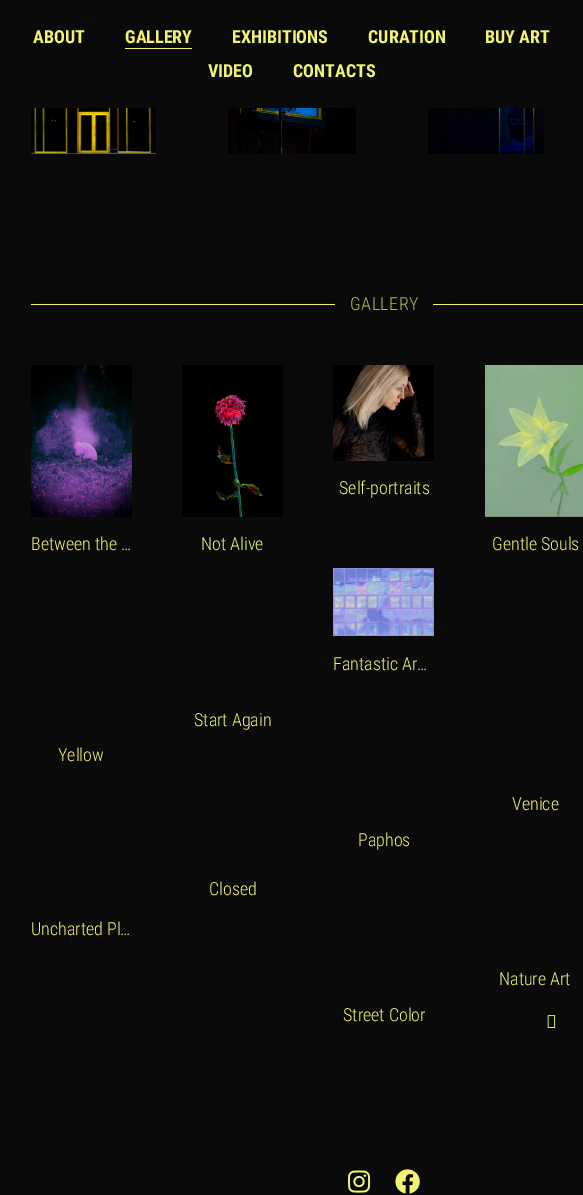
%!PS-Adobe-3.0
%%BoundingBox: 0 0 583 1195
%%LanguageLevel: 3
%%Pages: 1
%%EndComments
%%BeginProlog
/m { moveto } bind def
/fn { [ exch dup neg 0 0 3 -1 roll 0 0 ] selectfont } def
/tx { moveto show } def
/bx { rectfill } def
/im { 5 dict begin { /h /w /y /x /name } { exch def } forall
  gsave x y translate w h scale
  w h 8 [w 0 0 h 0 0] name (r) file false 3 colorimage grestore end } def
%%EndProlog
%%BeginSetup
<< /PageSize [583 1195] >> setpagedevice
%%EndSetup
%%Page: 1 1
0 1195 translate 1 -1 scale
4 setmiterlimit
0.039 setgray
0 0 583 1195 bx
/RobotoCondensed-Bold 18 fn
0.949 0.949 0.455 setrgbcolor
(ABOUT) 33 43 tx
(GALLERY) 125 43 tx
125 48 67 1 bx
(EXHIBITIONS) 232 43 tx
(CURATION) 368 43 tx
(BUY ART) 485 43 tx
(VIDEO) 208 77 tx
(CONTACTS) 293 77 tx
(image0.raw) 31 108 125 46 im
(image1.raw) 228 108 128 46 im
(image2.raw) 428 108 116 46 im
31 304 552 1 bx
0.039 setgray
335 304 98 1 bx
/RobotoCondensed-Light 18 fn
0.722 0.722 0.353 setrgbcolor
350 310 m 0.5 0 (GALLERY) ashow
(image3.raw) 333 365 101 96 im
0.949 0.949 0.455 setrgbcolor
(Self-portraits) 339 494 tx
(image4.raw) 31 365 101 152 im
(Between the …) 31 550 tx
(image5.raw) 182 365 101 152 im
(Not Alive) 201 550 tx
(image6.raw) 485 365 98 152 im
(Gentle Souls) 492 550 tx
(image7.raw) 333 568 101 68 im
(Fantastic Ar…) 333 670 tx
(Start Again) 194 726 tx
(Yellow) 58 761 tx
(Venice) 512 810 tx
(Paphos) 358 846 tx
(Closed) 209 895 tx
(Uncharted Pl…) 31 935 tx
(Nature Art) 499 985 tx
(Street Color) 343 1021 tx
(image8.raw) 547 1015 9 13 im
(image9.raw) 348 1170 23 23 im
(image10.raw) 395 1169 25 25 im
showpage
%%EOF
